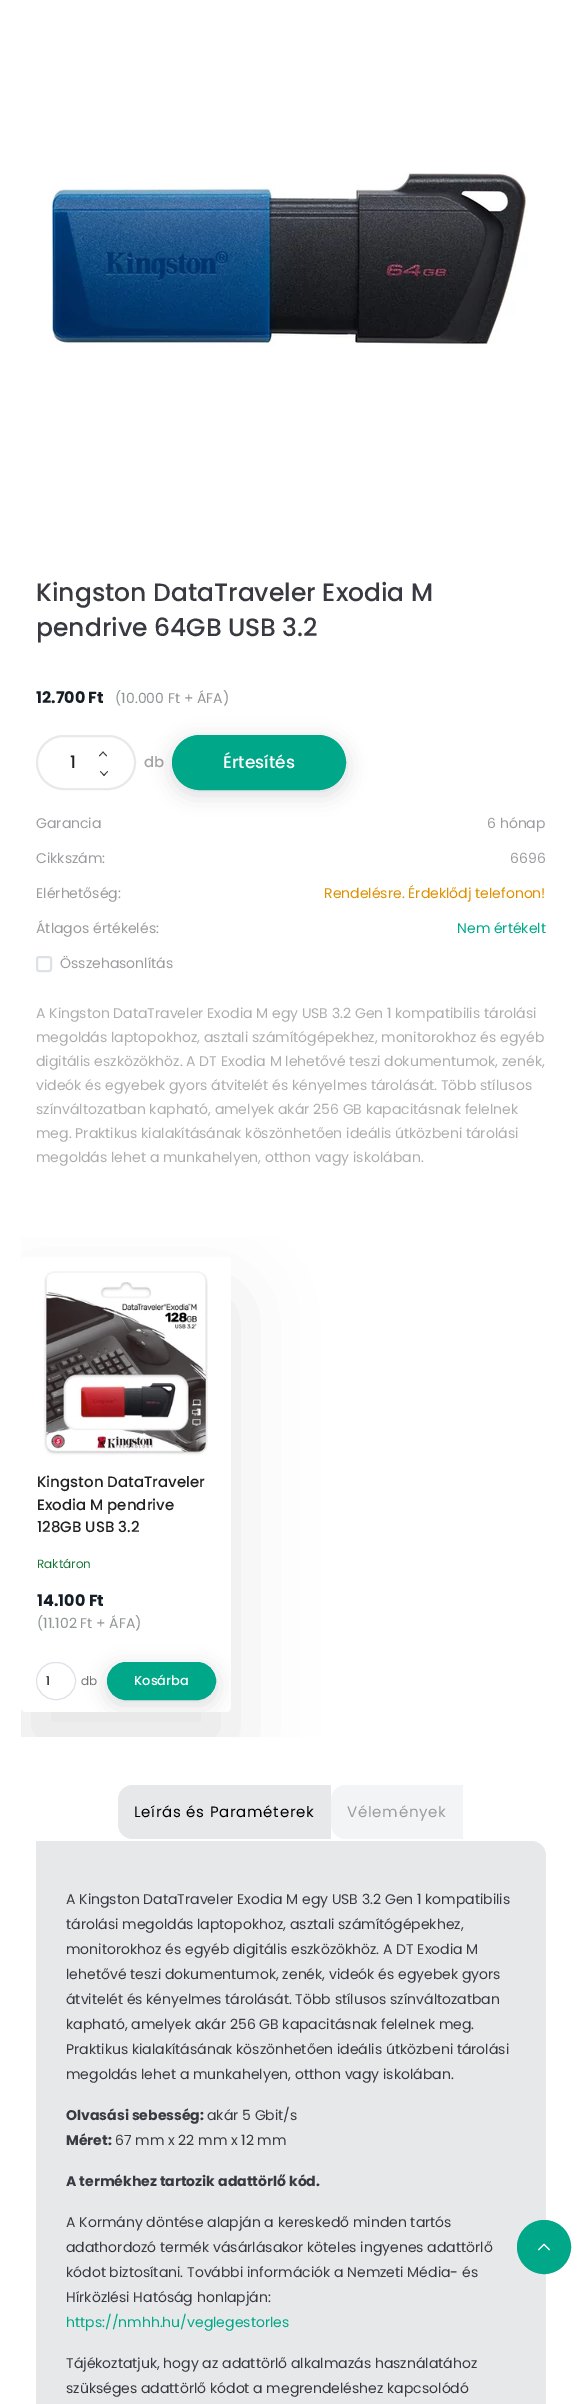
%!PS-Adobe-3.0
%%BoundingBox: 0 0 581 2404
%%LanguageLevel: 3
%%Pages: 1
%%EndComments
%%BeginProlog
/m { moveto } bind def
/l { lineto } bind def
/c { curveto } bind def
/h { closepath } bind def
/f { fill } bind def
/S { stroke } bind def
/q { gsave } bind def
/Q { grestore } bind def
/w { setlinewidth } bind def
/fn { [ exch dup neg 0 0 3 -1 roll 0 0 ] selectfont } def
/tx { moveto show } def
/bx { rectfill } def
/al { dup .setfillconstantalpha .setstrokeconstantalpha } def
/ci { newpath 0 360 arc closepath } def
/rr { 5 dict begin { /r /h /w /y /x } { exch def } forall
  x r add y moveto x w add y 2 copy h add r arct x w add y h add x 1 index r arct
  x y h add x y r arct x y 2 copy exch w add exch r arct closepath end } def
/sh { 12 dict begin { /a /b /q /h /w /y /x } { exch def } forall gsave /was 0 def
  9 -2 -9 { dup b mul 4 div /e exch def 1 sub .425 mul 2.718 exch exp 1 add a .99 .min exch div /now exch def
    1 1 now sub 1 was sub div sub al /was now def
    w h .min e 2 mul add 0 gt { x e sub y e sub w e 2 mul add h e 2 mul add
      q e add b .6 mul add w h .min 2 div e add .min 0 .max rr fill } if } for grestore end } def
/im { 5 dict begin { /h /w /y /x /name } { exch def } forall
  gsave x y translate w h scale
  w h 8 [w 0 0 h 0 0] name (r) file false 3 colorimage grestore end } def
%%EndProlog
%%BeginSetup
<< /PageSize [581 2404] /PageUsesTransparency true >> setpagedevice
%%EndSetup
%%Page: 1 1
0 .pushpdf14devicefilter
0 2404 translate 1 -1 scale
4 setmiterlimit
1 setgray
0 0 581 2404 bx
(image0.raw) 51 172 477 175 im
/Poppins-Medium 25 fn
0.224 0.227 0.255 setrgbcolor
(Kingston DataTraveler Exodia M) 36 601 tx
(pendrive 64GB USB 3.2) 36 636 tx
/Poppins-Bold 16 fn
0.082 0.118 0.149 setrgbcolor
(12.700 Ft) 36 703 tx
/Poppins-Regular 14 fn
0.573 0.584 0.592 setrgbcolor
(\(10.000 Ft + ÁFA\)) 115 703 tx
0.914 setgray
2 w
37 736 98 53 26.5 rr S
/Poppins-Medium 17 fn
0.129 setgray
(1) 70 768 tx
0.224 0.227 0.255 setrgbcolor
99.5 756.5 m 99 755.5 l 103 751.5 l 103.5 752 l h f
106.5 756.5 m 102.5 752 l 103 751.5 l 107 755.5 l h 107.5 771 m 108 771.5 l 104 776 l 103.5 775 l h f
100.5 771 m 104.5 775 l 104 776 l 100 771.5 l h f
/Poppins-Medium 15 fn
0.643 setgray
(db) 144 767 tx
0.125 0.125 0.173 setrgbcolor
172 740 174 55 27.5 10 0.15 sh
0 0.659 0.537 setrgbcolor
172.5 735.5 173 54 27 rr q f Q
1 w
S
/Poppins-Medium 17 fn
1 setgray
(Értesítés) 223 768 tx
/Poppins-Regular 14 fn
0.612 0.608 0.624 setrgbcolor
(Garancia) 36 828 tx
(6 hónap) 487 828 tx
(Cikkszám:) 36 863 tx
(6696) 510 863 tx
(Elérhetőség:) 36 898 tx
0.871 0.565 0 setrgbcolor
(Rendelésre. Érdeklődj telefonon!) 324 898 tx
0.612 0.608 0.624 setrgbcolor
(Átlagos értékelés:) 36 933 tx
0 0.659 0.537 setrgbcolor
(Nem értékelt) 457 933 tx
0.871 0.886 0.902 setrgbcolor
2 w
37 957 14 14 2 rr S
0.612 0.608 0.624 setrgbcolor
(Összehasonlítás) 60 968 tx
0.682 setgray
(A Kingston DataTraveler Exodia M egy USB 3.2 Gen 1 kompatibilis tárolási) 36 1018 tx
(megoldás laptopokhoz, asztali számítógépekhez, monitorokhoz és egyéb) 36 1042 tx
(digitális eszközökhöz. A DT Exodia M lehetővé teszi dokumentumok, zenék,) 36 1066 tx
(videók és egyebek gyors átvitelét és kényelmes tárolását. Több stílusos) 36 1090 tx
(színváltozatban kapható, amelyek akár 256 GB kapacitásnak felelnek) 36 1114 tx
(meg. Praktikus kialakításának köszönhetően ideális útközbeni tárolási) 36 1138 tx
(megoldás lehet a munkahelyen, otthon vagy iskolában.) 36 1162 tx
0.906 0.91 0.918 setrgbcolor
133 1785 m 331 1785 l 331 1839 l 133 1839 l 124.5 1839 118 1832.5 118 1824 c 118 1800 l 118 1791.5 124.5 1785 133 1785 c h f
0.953 0.957 0.961 setrgbcolor
346 1785 m 463 1785 l 463 1839 l 346 1839 l 337.5 1839 331 1832.5 331 1824 c 331 1800 l 331 1791.5 337.5 1785 346 1785 c h f
0.906 0.91 0.918 setrgbcolor
36 1841 m 531 1841 l 539.5 1841 546 1847.5 546 1856 c 546 2404 l 546 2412.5 539.5 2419 531 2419 c 51 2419 l 42.5 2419 36 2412.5 36 2404 c h f
q
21 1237 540 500 rectclip
0 setgray
21 1297 210 455 5 40 0.1 sh
Q
1 setgray
21 1257 210 455 5 rr f
(image1.raw) 43 1271 165 185 im
/Poppins-Medium 15 fn
0.129 setgray
(Kingston DataTraveler) 37 1487 tx
(Exodia M pendrive) 37 1510 tx
(128GB USB 3.2) 37 1532 tx
/Poppins-Regular 12 fn
0.09 0.459 0.216 setrgbcolor
(Raktáron) 37 1568 tx
/Poppins-Bold 16 fn
0.082 0.118 0.149 setrgbcolor
(14.100 Ft) 37 1606 tx
/Poppins-Regular 14 fn
0.573 0.584 0.592 setrgbcolor
(\(11.102 Ft + ÁFA\)) 37 1628 tx
0.871 0.886 0.902 setrgbcolor
1 w
36.5 1662.5 39 37 18.5 rr S
/Poppins-Regular 12 fn
0 setgray
(1) 46 1685 tx
0.463 setgray
(db) 81 1685 tx
q
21 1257 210 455 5 rr clip newpath
0.125 0.125 0.173 setrgbcolor
107 1667 109 38 19 10 0.15 sh
Q
0 0.659 0.537 setrgbcolor
107.5 1662.5 108 37 18.5 rr q f Q
S
/Poppins-Medium 13 fn
1 setgray
(Kosárba) 134 1685 tx
/Poppins-Regular 15 fn
0 setgray
134 1817 m 0.75 0 (Leírás és Paraméterek) ashow
0.612 0.608 0.624 setrgbcolor
347 1817 m 0.75 0 (Vélemények) ashow
/Poppins-Regular 14 fn
0.224 0.227 0.255 setrgbcolor
(A Kingston DataTraveler Exodia M egy USB 3.2 Gen 1 kompatibilis) 66 1904 tx
(tárolási megoldás laptopokhoz, asztali számítógépekhez,) 66 1929 tx
(monitorokhoz és egyéb digitális eszközökhöz. A DT Exodia M) 66 1954 tx
(lehetővé teszi dokumentumok, zenék, videók és egyebek gyors) 66 1979 tx
(átvitelét és kényelmes tárolását. Több stílusos színváltozatban) 66 2004 tx
(kapható, amelyek akár 256 GB kapacitásnak felelnek meg.) 66 2029 tx
(Praktikus kialakításának köszönhetően ideális útközbeni tárolási) 66 2054 tx
(megoldás lehet a munkahelyen, otthon vagy iskolában.) 66 2079 tx
/Poppins-Bold 14 fn
(Olvasási sebesség:) 66 2120 tx
/Poppins-Regular 14 fn
(akár 5 Gbit/s) 207 2120 tx
/Poppins-Bold 14 fn
(Méret:) 66 2145 tx
/Poppins-Regular 14 fn
(67 mm x 22 mm x 12 mm) 115 2145 tx
/Poppins-Bold 14 fn
(A termékhez tartozik adattörlő kód.) 66 2186 tx
/Poppins-Regular 14 fn
(A Kormány döntése alapján a kereskedő minden tartós) 66 2227 tx
(adathordozó termék vásárlásakor köteles ingyenes adattörlő) 66 2252 tx
(kódot biztosítani. További információk a Nemzeti Média- és) 66 2277 tx
(Hírközlési Hatóság honlapján:) 66 2302 tx
0 0.659 0.537 setrgbcolor
(https://nmhh.hu/veglegestorles) 66 2327 tx
0.224 0.227 0.255 setrgbcolor
(Tájékoztatjuk, hogy az adattörlő alkalmazás használatához) 66 2368 tx
(szükséges adattörlő kódot a megrendeléshez kapcsolódó) 66 2393 tx
0 0.659 0.537 setrgbcolor
544 2247 26.5 ci q f Q
S
(image2.raw) 538 2243 12 8 im
.poppdf14devicefilter showpage
%%EOF
